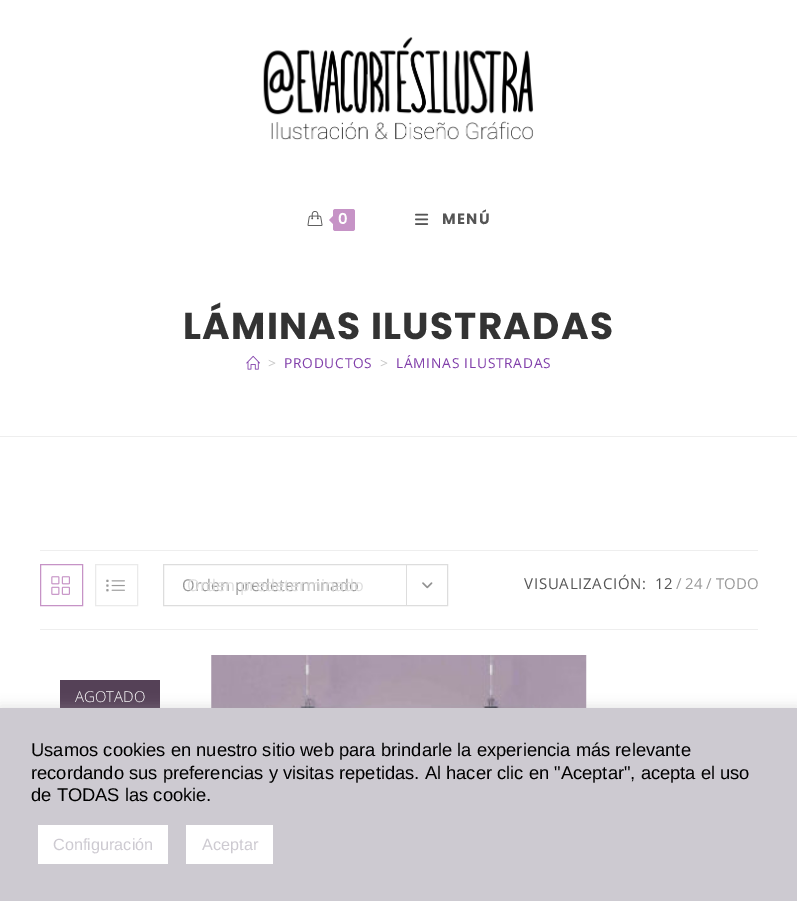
%!PS-Adobe-3.0
%%BoundingBox: 0 0 797 901
%%LanguageLevel: 3
%%Pages: 1
%%EndComments
%%BeginProlog
/m { moveto } bind def
/l { lineto } bind def
/h { closepath } bind def
/f { fill } bind def
/fn { [ exch dup neg 0 0 3 -1 roll 0 0 ] selectfont } def
/tx { moveto show } def
/bx { rectfill } def
/al { dup .setfillconstantalpha .setstrokeconstantalpha } def
/rr { 5 dict begin { /r /h /w /y /x } { exch def } forall
  x r add y moveto x w add y 2 copy h add r arct x w add y h add x 1 index r arct
  x y h add x y r arct x y 2 copy exch w add exch r arct closepath end } def
/sh { 12 dict begin { /a /b /q /h /w /y /x } { exch def } forall gsave /was 0 def
  9 -2 -9 { dup b mul 4 div /e exch def 1 sub .425 mul 2.718 exch exp 1 add a .99 .min exch div /now exch def
    1 1 now sub 1 was sub div sub al /was now def
    w h .min e 2 mul add 0 gt { x e sub y e sub w e 2 mul add h e 2 mul add
      q e add b .6 mul add w h .min 2 div e add .min 0 .max rr fill } if } for grestore end } def
/im { 5 dict begin { /h /w /y /x /name } { exch def } forall
  gsave x y translate w h scale
  w h 8 [w 0 0 h 0 0] name (r) file false 3 colorimage grestore end } def
%%EndProlog
%%BeginSetup
<< /PageSize [797 901] /PageUsesTransparency true >> setpagedevice
%%EndSetup
%%Page: 1 1
0 .pushpdf14devicefilter
0 901 translate 1 -1 scale
4 setmiterlimit
1 setgray
0 0 797 901 bx
(image0.raw) 263 37 271 103 im
(image1.raw) 307 211 16 15 im
0.776 0.576 0.776 setrgbcolor
333 209 22 22 2.5 rr f
335 214 m 335 226 l 329 220 l h f
/Poppins-SemiBold 15 fn
1 setgray
338 224 m 1.25 0 (0) ashow
(image2.raw) 415 213 14 12 im
/Poppins-Bold 15 fn
0.333 setgray
442 224 m 1.25 0 (MENÚ) ashow
0.933 setgray
0 436 797 1 bx
/Poppins-Bold 37.5 fn
0.2 setgray
183 339 m 1.25 0 (LÁMINAS ILUSTRADAS) ashow
(image3.raw) 246 355 14 15 im
/OpenSans-Regular 13.75 fn
0.776 setgray
268 368 m 0.75 0 (>) ashow
0.506 0.247 0.667 setrgbcolor
284 368 m 0.75 0 (PRODUCTOS) ashow
0.776 setgray
380 368 m 0.75 0 (>) ashow
0.506 0.247 0.667 setrgbcolor
396 368 m 0.75 0 (LÁMINAS ILUSTRADAS) ashow
0.933 setgray
40 550 718 1 bx
40 629 718 1 bx
0.776 0.576 0.776 setrgbcolor
40.5 564.5 42 41 rectstroke
(image4.raw) 51 576 19 19 im
0.918 setgray
95.5 564.5 42 41 rectstroke
(image5.raw) 106 579 19 13 im
0.867 setgray
163.5 564.5 284 41 rectstroke
/OpenSans-Regular 16.25 fn
0.6 setgray
(Orden predeterminado) 182 591 tx
0.867 setgray
406 565 1 40 bx
(image6.raw) 422 582 11 7 im
0.871 setgray
(Orden predeterminado) 187 591 tx
/OpenSans-Regular 15 fn
0.333 setgray
524 589 m 0.75 0 (VISUALIZACIÓN:) ashow
(12) 655 589 tx
0.6 setgray
(/ 24 / TODO) 676 589 tx
0.333 0.255 0.341 setrgbcolor
60 680 100 28 bx
/OpenSans-Light 15 fn
1 setgray
(AGOTADO) 75 702 tx
(image7.raw) 211 655 376 53 im
0.675 0.671 0.671 setrgbcolor
0 706 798 194 0 6 0.3 sh
0.804 0.792 0.82 setrgbcolor
0 708 797 193 bx
/LiberationSans-Regular 18.35 fn
0 setgray
(Usamos cookies en nuestro sitio web para brindarle la experiencia más relevante) 31 756 tx
(recordando sus preferencias y visitas repetidas. Al hacer clic en "Aceptar", acepta el uso) 31 779 tx
(de TODAS las cookie.) 31 801 tx
1 setgray
38 825 130 39 bx
/LiberationSans-Regular 16.25 fn
0.804 0.792 0.82 setrgbcolor
(Configuración) 53 850 tx
1 setgray
186 825 87 39 bx
0.804 0.792 0.82 setrgbcolor
(Aceptar) 202 850 tx
.poppdf14devicefilter showpage
%%EOF
